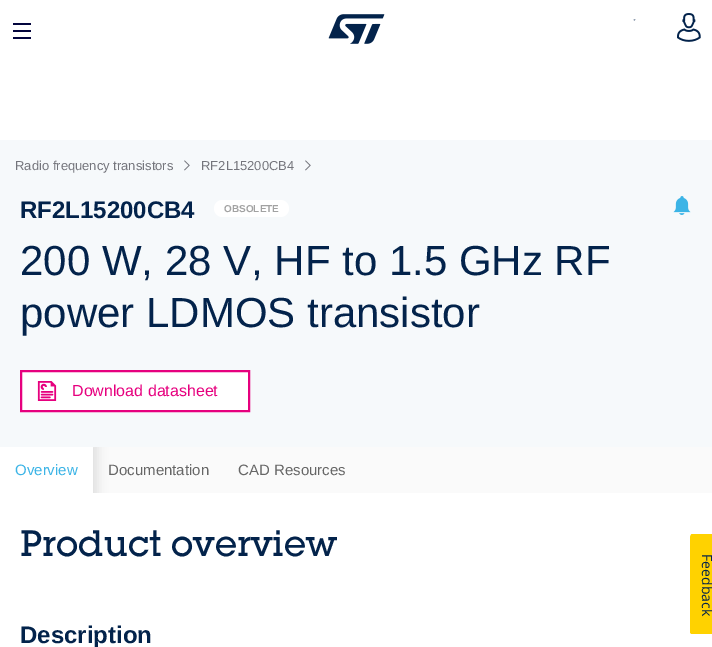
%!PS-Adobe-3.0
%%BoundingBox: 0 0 712 647
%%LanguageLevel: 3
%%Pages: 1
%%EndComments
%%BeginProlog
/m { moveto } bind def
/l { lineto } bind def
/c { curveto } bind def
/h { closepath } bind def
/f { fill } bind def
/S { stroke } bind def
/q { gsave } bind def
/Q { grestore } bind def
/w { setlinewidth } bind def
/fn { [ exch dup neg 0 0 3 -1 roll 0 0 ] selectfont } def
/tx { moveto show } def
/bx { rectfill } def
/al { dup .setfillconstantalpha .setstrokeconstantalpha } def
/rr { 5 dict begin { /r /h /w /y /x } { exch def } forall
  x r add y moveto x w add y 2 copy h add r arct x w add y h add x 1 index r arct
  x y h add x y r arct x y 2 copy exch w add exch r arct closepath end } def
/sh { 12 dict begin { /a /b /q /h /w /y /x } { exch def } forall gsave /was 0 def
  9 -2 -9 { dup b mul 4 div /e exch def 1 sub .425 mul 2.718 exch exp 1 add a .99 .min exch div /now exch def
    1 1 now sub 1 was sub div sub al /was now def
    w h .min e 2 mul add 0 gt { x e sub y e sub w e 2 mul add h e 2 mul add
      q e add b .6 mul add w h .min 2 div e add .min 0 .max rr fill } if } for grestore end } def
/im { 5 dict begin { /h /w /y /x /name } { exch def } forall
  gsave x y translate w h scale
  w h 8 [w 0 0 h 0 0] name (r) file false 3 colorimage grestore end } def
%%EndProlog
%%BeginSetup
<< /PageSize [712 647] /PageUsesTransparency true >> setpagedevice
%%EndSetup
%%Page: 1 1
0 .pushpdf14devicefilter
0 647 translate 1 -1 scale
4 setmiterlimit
1 setgray
0 0 712 647 bx
(image0.raw) 13 23 18 16 im
(image1.raw) 328 14 57 30 im
(image2.raw) 633 19 3 2 im
(image3.raw) 677 13 24 29 im
0.965 0.976 0.984 setrgbcolor
0 140 712 307 bx
/LiberationSans-Regular 13 fn
0.455 0.459 0.486 setrgbcolor
(Radio frequency transistors) 15 170 tx
(image4.raw) 184 160 6 11 im
(RF2L15200CB4) 201 170 tx
(image4.raw) 305 160 6 11 im
/LiberationSans-Bold 24 fn
0.012 0.137 0.294 setrgbcolor
(RF2L15200CB4) 20 218 tx
1 setgray
214 200 75 17 8.5 rr f
/LiberationSans-Bold 10 fn
0.635 setgray
(OBSOLETE) 224 212 tx
(image5.raw) 673 196 18 19 im
/LiberationSans-Regular 42 fn
0.012 0.137 0.294 setrgbcolor
(200 W, 28 V, HF to 1.5 GHz RF) 20 275 tx
(power LDMOS transistor) 20 327 tx
1 setgray
21 371 m 249 371 l 249 411 l 21 411 l h q f Q
0.902 0 0.494 setrgbcolor
2 w
S
(image6.raw) 37 381 20 20 im
/LiberationSans-Regular 16 fn
(Download datasheet) 72 396 tx
0.98 setgray
93 447 619 46 bx
q
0 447 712 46 rectclip
0 setgray
-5 444 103 56 0 5 0.1 sh
Q
1 setgray
0 447 93 46 bx
/LiberationSans-Regular 15 fn
0.235 0.706 0.902 setrgbcolor
(Overview) 15 475 tx
0.4 setgray
(Documentation) 108 475 tx
(CAD Resources) 238 475 tx
/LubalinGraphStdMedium-Medium 36 fn
0.012 0.137 0.294 setrgbcolor
(Product overview) 20 556 tx
/LiberationSans-Bold 24 fn
(Description) 20 643 tx
1 0.824 0 setrgbcolor
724 534 m 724 634 l 692 634 l 691 634 690 633 690 632 c 690 538 l 690 536 691 534 692 534 c h f
/OpenSans-Regular 14 fn
0.012 0.137 0.294 setrgbcolor
q 702 554 translate 90 rotate 0 0 m (Feedback) show Q
.poppdf14devicefilter showpage
%%EOF
